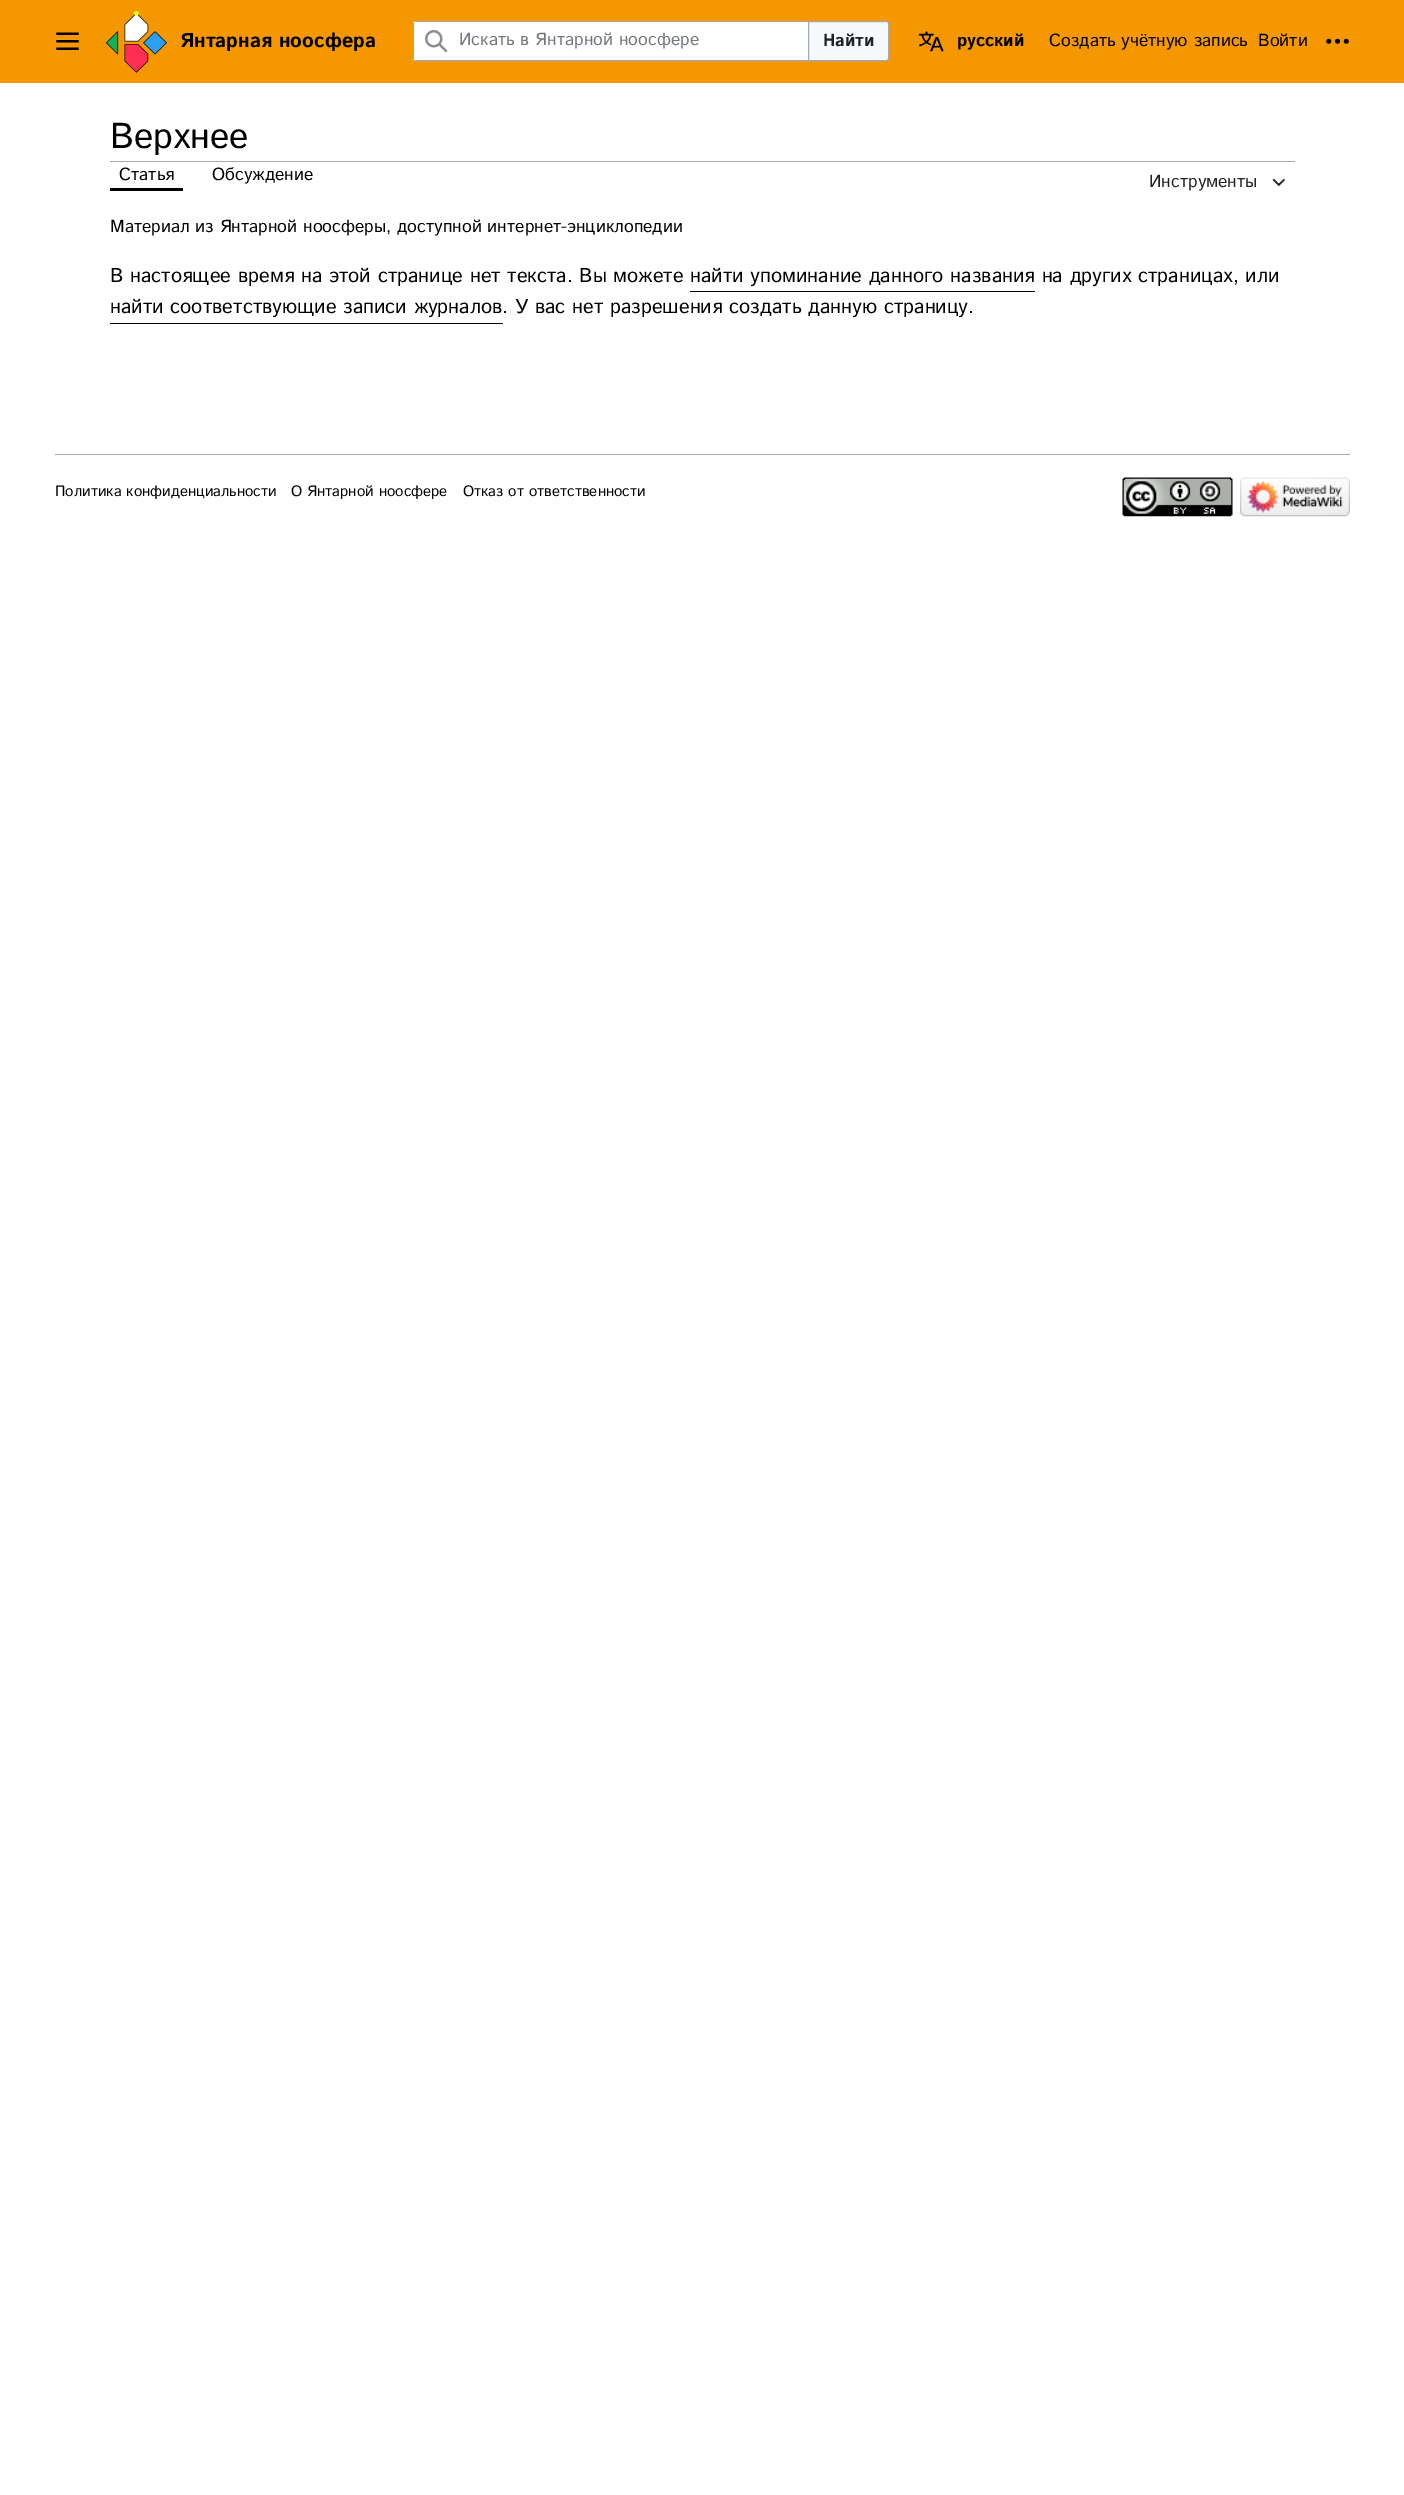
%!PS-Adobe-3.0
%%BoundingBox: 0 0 1404 2495
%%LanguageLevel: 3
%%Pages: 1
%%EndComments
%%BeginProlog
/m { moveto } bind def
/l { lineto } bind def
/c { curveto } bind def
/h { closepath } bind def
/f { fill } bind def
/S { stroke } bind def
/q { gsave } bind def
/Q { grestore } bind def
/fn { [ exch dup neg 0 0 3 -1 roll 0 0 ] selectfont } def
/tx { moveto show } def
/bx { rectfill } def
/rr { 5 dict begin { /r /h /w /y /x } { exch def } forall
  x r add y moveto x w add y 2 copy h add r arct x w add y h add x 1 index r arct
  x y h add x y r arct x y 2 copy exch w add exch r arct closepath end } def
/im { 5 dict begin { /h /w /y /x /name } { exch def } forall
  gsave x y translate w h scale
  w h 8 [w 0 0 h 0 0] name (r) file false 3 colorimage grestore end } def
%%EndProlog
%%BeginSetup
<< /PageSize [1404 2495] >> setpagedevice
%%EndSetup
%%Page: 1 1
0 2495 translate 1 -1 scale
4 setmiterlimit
1 setgray
0 0 1404 2495 bx
0.961 0.592 0 setrgbcolor
0 0 1404 83 bx
(image0.raw) 56 32 23 18 im
(image1.raw) 106 11 61 62 im
/IstokWeb-Bold 20 fn
0 setgray
(Янтарная ноосфера) 180 47 tx
0.635 0.663 0.694 setrgbcolor
413.5 21.5 475 39 2 rr S
0.973 0.976 0.98 setrgbcolor
808.5 21.5 m 886.5 21.5 l 887.5 21.5 888.5 22.5 888.5 23.5 c 888.5 58.5 l 888.5 59.5 887.5 60.5 886.5 60.5 c 808.5 60.5 l h q f Q
0.635 0.663 0.694 setrgbcolor
S
1 setgray
415.5 21 m 809 21 l 809 61 l 415.5 61 l 414 61 413 60 413 58.5 c 413 23.5 l 413 22 414 21 415.5 21 c h f
0.635 0.663 0.694 setrgbcolor
416 21 m 414 21 413 22 413 24 c 413 58 l 413 60 414 61 416 61 c 809 61 l 809 21 l h 414 22 m 414 60 l 808 60 l 808 22 l h eofill
(image2.raw) 425 30 23 23 im
/IstokWeb-Regular 17.5 fn
0.447 0.467 0.49 setrgbcolor
(Искать в Янтарной ноосфере) 459 45 tx
/IstokWeb-Bold 17.5 fn
0.125 0.129 0.133 setrgbcolor
(Найти) 823 46 tx
(image3.raw) 919 31 25 21 im
0 setgray
(русский) 957 46 tx
/IstokWeb-Regular 17.5 fn
(Создать учётную запись) 1049 46 tx
(Войти) 1258 46 tx
(image4.raw) 1326 38 23 6 im
/IstokWeb-Regular 36 fn
(Верхнее) 110 148 tx
0.635 0.663 0.694 setrgbcolor
110 161 1185 1 bx
0 setgray
110 188 73 3 bx
/IstokWeb-Regular 17.5 fn
(Статья) 119 180 tx
(Обсуждение) 212 180 tx
0.125 0.129 0.133 setrgbcolor
(Инструменты) 1149 187 tx
(image5.raw) 1272 178 13 9 im
0 setgray
(Материал из Янтарной ноосферы, доступной интернет-энциклопедии) 110 232 tx
/IstokWeb-Regular 20 fn
(В настоящее время на этой странице нет текста. Вы можете найти упоминание данного названия на других страницах, или) 110 282 tx
690 291 345 1 bx
(найти соответствующие записи журналов. У вас нет разрешения создать данную страницу.) 110 313 tx
110 323 393 1 bx
0.635 0.663 0.694 setrgbcolor
55 454 1295 1 bx
/IstokWeb-Regular 15 fn
0 setgray
(Политика конфиденциальности) 55 496 tx
(О Янтарной ноосфере) 291 496 tx
(Отказ от ответственности) 463 496 tx
(image6.raw) 1122 477 111 40 im
(image7.raw) 1240 477 110 40 im
showpage
%%EOF
